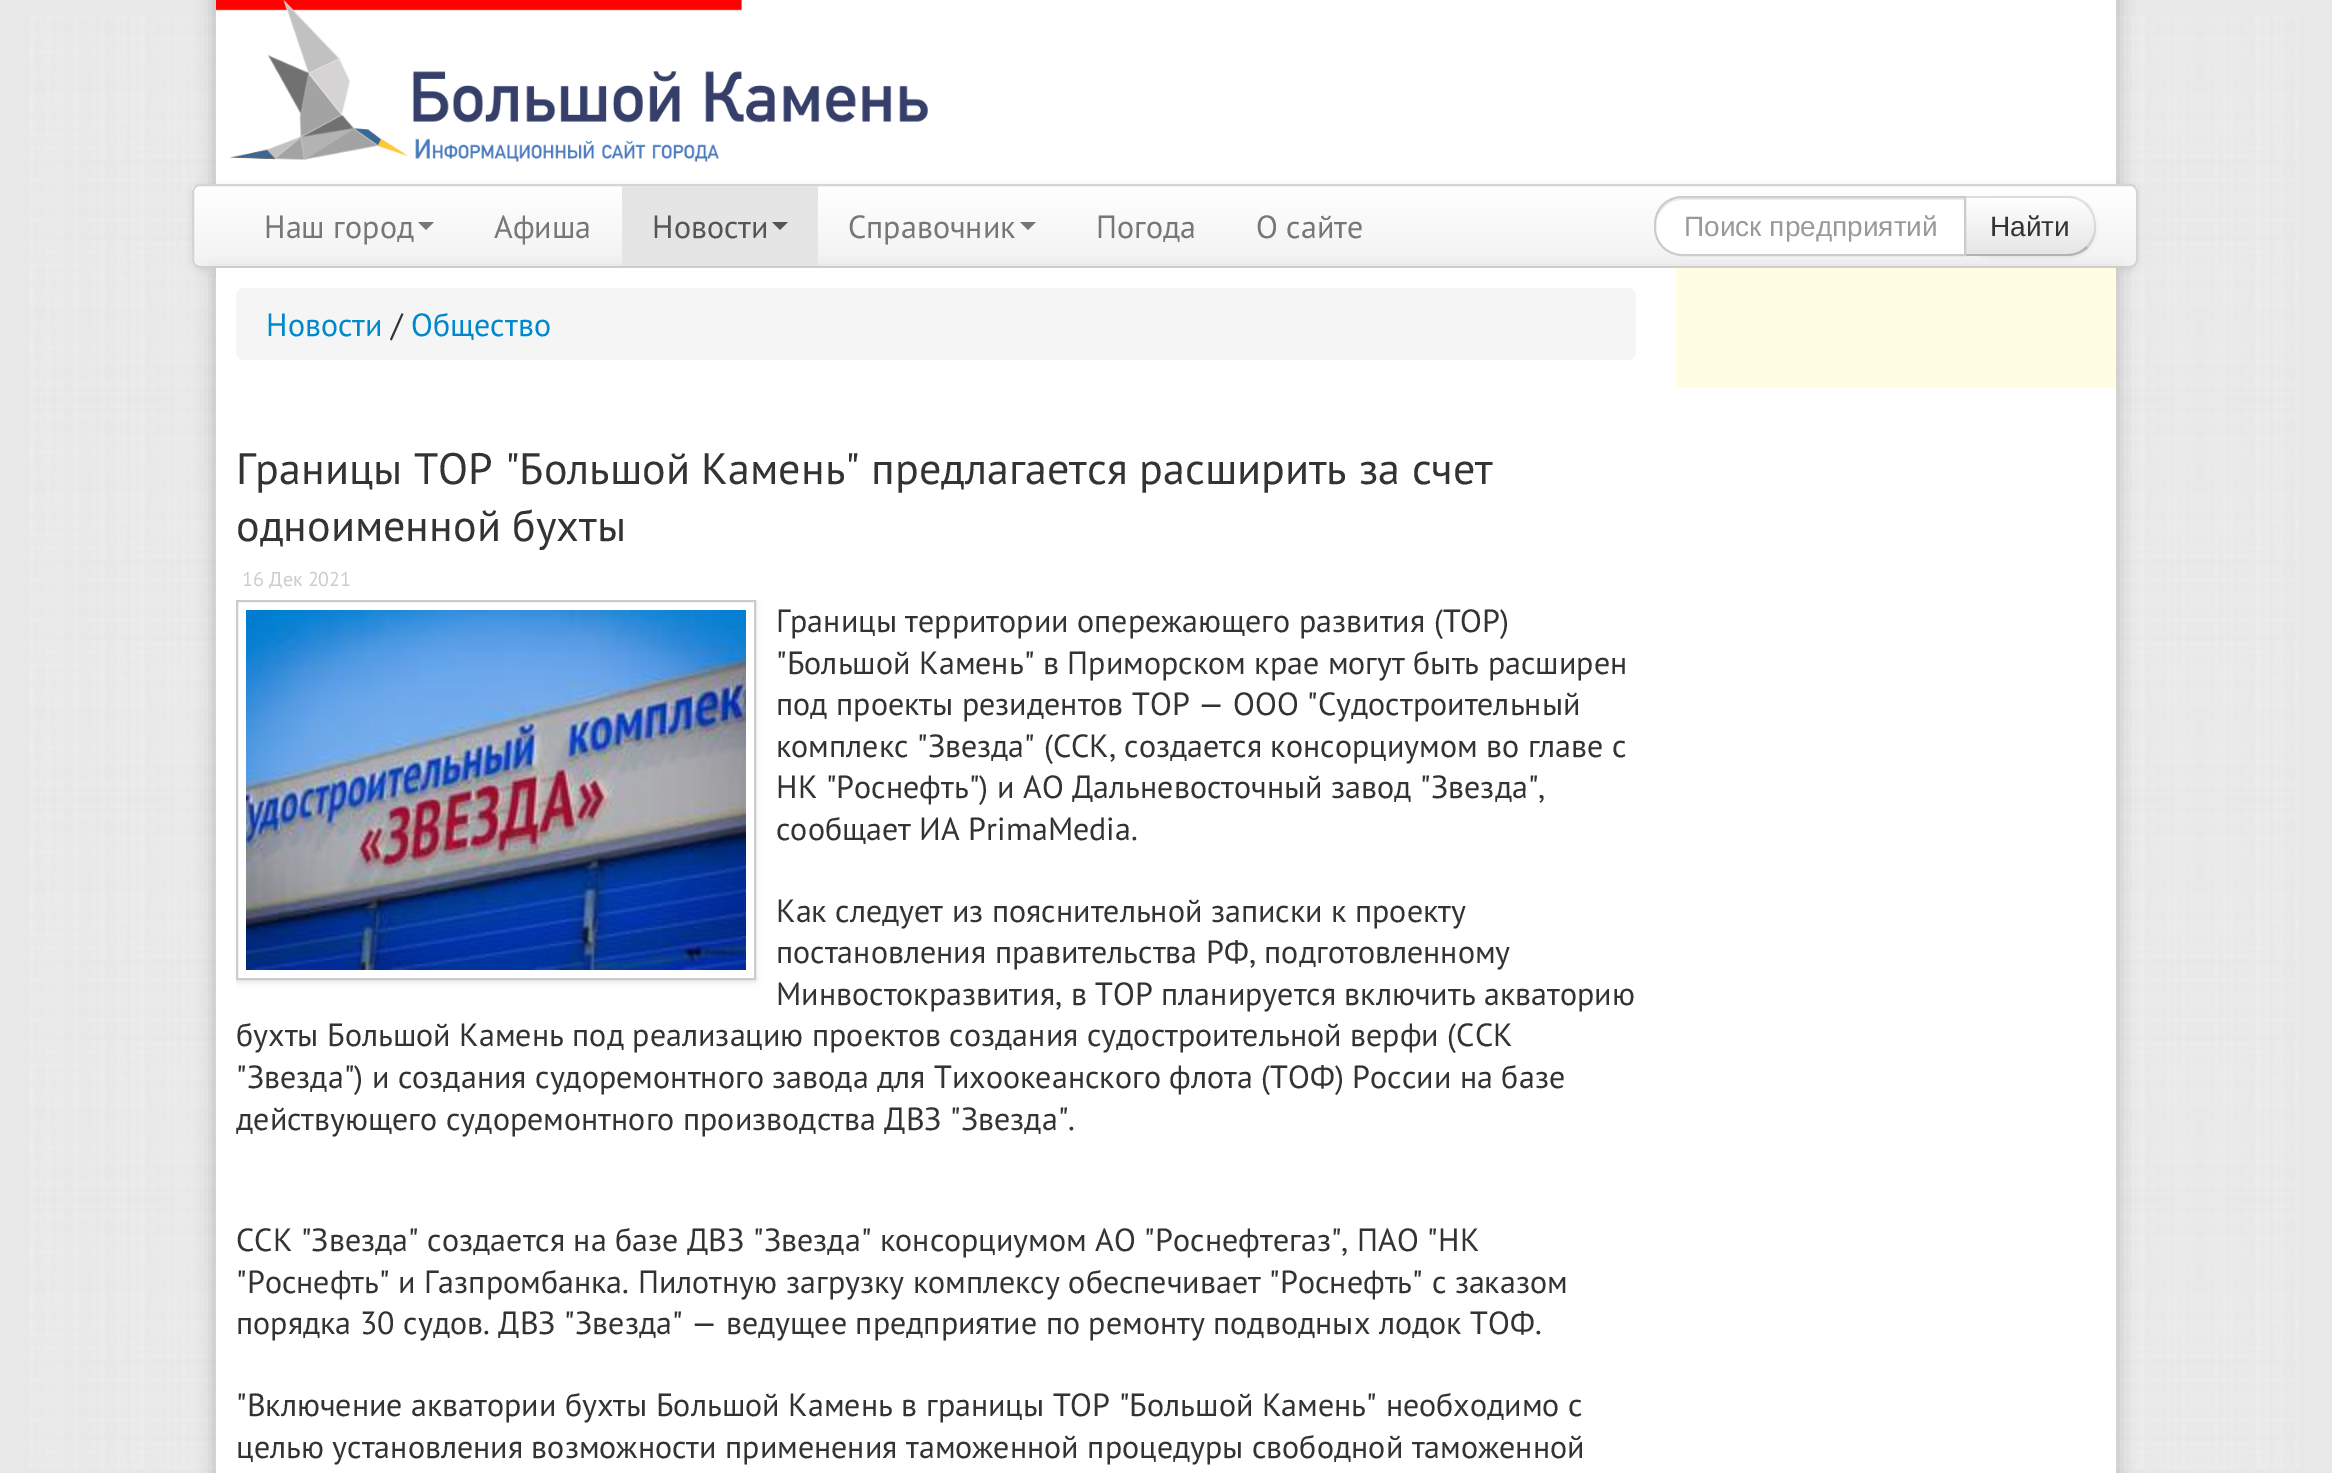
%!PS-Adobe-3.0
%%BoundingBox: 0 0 2332 1473
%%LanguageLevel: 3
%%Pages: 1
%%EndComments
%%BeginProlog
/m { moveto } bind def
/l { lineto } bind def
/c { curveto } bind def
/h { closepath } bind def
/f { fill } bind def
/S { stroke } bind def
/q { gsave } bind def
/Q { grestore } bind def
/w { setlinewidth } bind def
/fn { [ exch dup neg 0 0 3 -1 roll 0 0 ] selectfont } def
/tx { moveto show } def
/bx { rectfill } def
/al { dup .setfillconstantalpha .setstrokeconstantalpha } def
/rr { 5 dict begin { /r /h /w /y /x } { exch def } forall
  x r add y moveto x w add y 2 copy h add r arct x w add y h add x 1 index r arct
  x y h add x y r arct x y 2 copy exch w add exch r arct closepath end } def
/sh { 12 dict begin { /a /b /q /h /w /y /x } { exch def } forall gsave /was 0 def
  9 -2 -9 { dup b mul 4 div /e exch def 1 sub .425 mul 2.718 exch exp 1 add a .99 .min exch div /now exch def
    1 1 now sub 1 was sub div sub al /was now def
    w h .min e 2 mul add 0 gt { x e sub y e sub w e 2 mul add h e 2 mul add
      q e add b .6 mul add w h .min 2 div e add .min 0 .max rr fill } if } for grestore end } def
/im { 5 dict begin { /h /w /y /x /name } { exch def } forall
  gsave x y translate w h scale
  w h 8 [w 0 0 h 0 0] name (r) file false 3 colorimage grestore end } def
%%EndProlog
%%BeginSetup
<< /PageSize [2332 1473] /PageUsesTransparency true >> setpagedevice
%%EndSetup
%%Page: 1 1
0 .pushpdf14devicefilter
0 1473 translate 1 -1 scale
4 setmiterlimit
0.91 setgray
0 0 2332 1473 bx
(image0.raw) 29 16 2270 1453 im
0 setgray
214 -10 1904 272 0 8 0.2 sh
1 setgray
216 0 1900 184 bx
(image1.raw) 216 0 712 162 im
0 setgray
192 186 1946 84 8 4 0.07 sh
q
192 184 1946 84 8 rr clip newpath
q 192 186 m 2138 186 l 2138 266 l 192 266 l h clip newpath
<< /ShadingType 2 /ColorSpace /DeviceRGB /Coords [1165 186 1165 266] /Extend [true true] /Function << /FunctionType 2 /Domain [0 1] /C0 [1 1 1] /C1 [0.949 0.949 0.949] /N 1 >> >> shfill Q
Q
0.831 setgray
2 w
193 185 1944 82 7 rr S
/PTSans-Regular 32 fn
0.467 setgray
(Наш город) 264 238 tx
418 222 m 434 222 l 426 230 l h f
(Афиша) 494 238 tx
0 setgray
214 274 1904 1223 0 8 0.2 sh
0.898 setgray
622 186 196 80 bx
0.333 setgray
(Новости) 652 238 tx
772 222 m 788 222 l 780 230 l h f
0.467 setgray
(Справочник) 848 238 tx
1020 222 m 1036 222 l 1028 230 l h f
(Погода) 1096 238 tx
(О сайте) 1256 238 tx
0 setgray
1964 198 132 60 28 2 0.05 sh
0.961 setgray
1964 196 m 2068 196 l 2083.5 196 2096 208.5 2096 224 c 2096 228 l 2096 243.5 2083.5 256 2068 256 c 1964 256 l h f
q
1964 196 m 2068 196 l 2083.5 196 2096 208.5 2096 224 c 2096 228 l 2096 243.5 2083.5 256 2068 256 c 1964 256 l h clip newpath
q 1966 198 m 2096 198 l 2096 254 l 1966 254 l h clip newpath
<< /ShadingType 2 /ColorSpace /DeviceRGB /Coords [2030 198 2030 254] /Extend [true true] /Function << /FunctionType 2 /Domain [0 1] /C0 [1 1 1] /C1 [0.902 0.902 0.902] /N 1 >> >> shfill Q
Q
0.1 al
0 setgray
1964 196 m 1966 198 l 2068 198 l 2075 198 2082 201 2086 206 c 2088 204 l 2082 199 2076 196 2068 196 c h f
2096 228 m 2096 219 2094 211 2088 204 c 2086 206 l 2097 216 2097 236 2086 246 c 2088 248 l 2093 242 2096 236 2096 228 c h f
1 al
0.702 setgray
2068 256 m 2076 256 2082 253 2088 248 c 2086 246 l 2082 251 2075 254 2068 254 c 1966 254 l 1964 256 l h f
1 setgray
1682 196 m 1966 196 l 1966 256 l 1682 256 l 1666.5 256 1654 243.5 1654 228 c 1654 224 l 1654 208.5 1666.5 196 1682 196 c h f
0.925 setgray
1682 200 m 1964 200 l 1964 198 l 1682 198 l 1668 198 1656 210 1656 224 c 1656 226 l 1656 212 1668 200 1682 200 c h f
0.8 setgray
1682 197 m 1965 197 l 1965 255 l 1682 255 l 1667 255 1655 243 1655 228 c 1655 224 l 1655 209 1667 197 1682 197 c h S
/LiberationSans-Regular 28 fn
0.6 setgray
(Поиск предприятий) 1684 236 tx
0.2 setgray
(Найти) 1990 236 tx
1 setgray
216 268 1900 1205 bx
0.961 setgray
236 288 1400 72 8 rr f
/PTSans-Regular 32 fn
0 0.533 0.8 setrgbcolor
(Новости) 266 336 tx
0.2 setgray
(/) 391 336 tx
0 0.533 0.8 setrgbcolor
(Общество) 411 336 tx
/PTSans-Regular 44 fn
0.2 setgray
(Границы ТОР "Большой Камень" предлагается расширить за счет) 236 484 tx
(одноименной бухты) 236 541 tx
/PTSans-Regular 20 fn
0.8 setgray
(16 Дек 2021) 242 586 tx
q
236 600 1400 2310 rectclip
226 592 m 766 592 l 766 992 l 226 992 l h 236 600 m 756 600 l 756 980 l 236 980 l h eoclip newpath
0 setgray
236 602 520 380 0 3 0.1 sh
Q
237 601 518 378 rectstroke
(image2.raw) 246 610 500 360 im
/PTSans-Regular 32 fn
0.2 setgray
(Границы территории опережающего развития \(ТОР\)) 776 632 tx
("Большой Камень" в Приморском крае могут быть расширен) 776 674 tx
(под проекты резидентов ТОР — ООО "Судостроительный) 776 715 tx
(комплекс "Звезда" \(ССК, создается консорциумом во главе с) 776 757 tx
(НК "Роснефть"\) и АО Дальневосточный завод "Звезда",) 776 798 tx
(сообщает ИА PrimaMedia.) 776 840 tx
(Как следует из пояснительной записки к проекту) 776 922 tx
(постановления правительства РФ, подготовленному) 776 963 tx
(Минвостокразвития, в ТОР планируется включить акваторию) 776 1005 tx
(бухты Большой Камень под реализацию проектов создания судостроительной верфи \(ССК) 236 1046 tx
("Звезда"\) и создания судоремонтного завода для Тихоокеанского флота \(ТОФ\) России на базе) 236 1088 tx
(действующего судоремонтного производства ДВЗ "Звезда".) 236 1130 tx
(ССК "Звезда" создается на базе ДВЗ "Звезда" консорциумом АО "Роснефтегаз", ПАО "НК) 236 1251 tx
("Роснефть" и Газпромбанка. Пилотную загрузку комплексу обеспечивает "Роснефть" с заказом) 236 1293 tx
(порядка 30 судов. ДВЗ "Звезда" — ведущее предприятие по ремонту подводных лодок ТОФ.) 236 1334 tx
("Включение акватории бухты Большой Камень в границы ТОР "Большой Камень" необходимо с) 236 1416 tx
(целью установления возможности применения таможенной процедуры свободной таможенной) 236 1458 tx
1 0.996 0.886 setrgbcolor
1676 268 440 120 bx
.poppdf14devicefilter showpage
%%EOF
